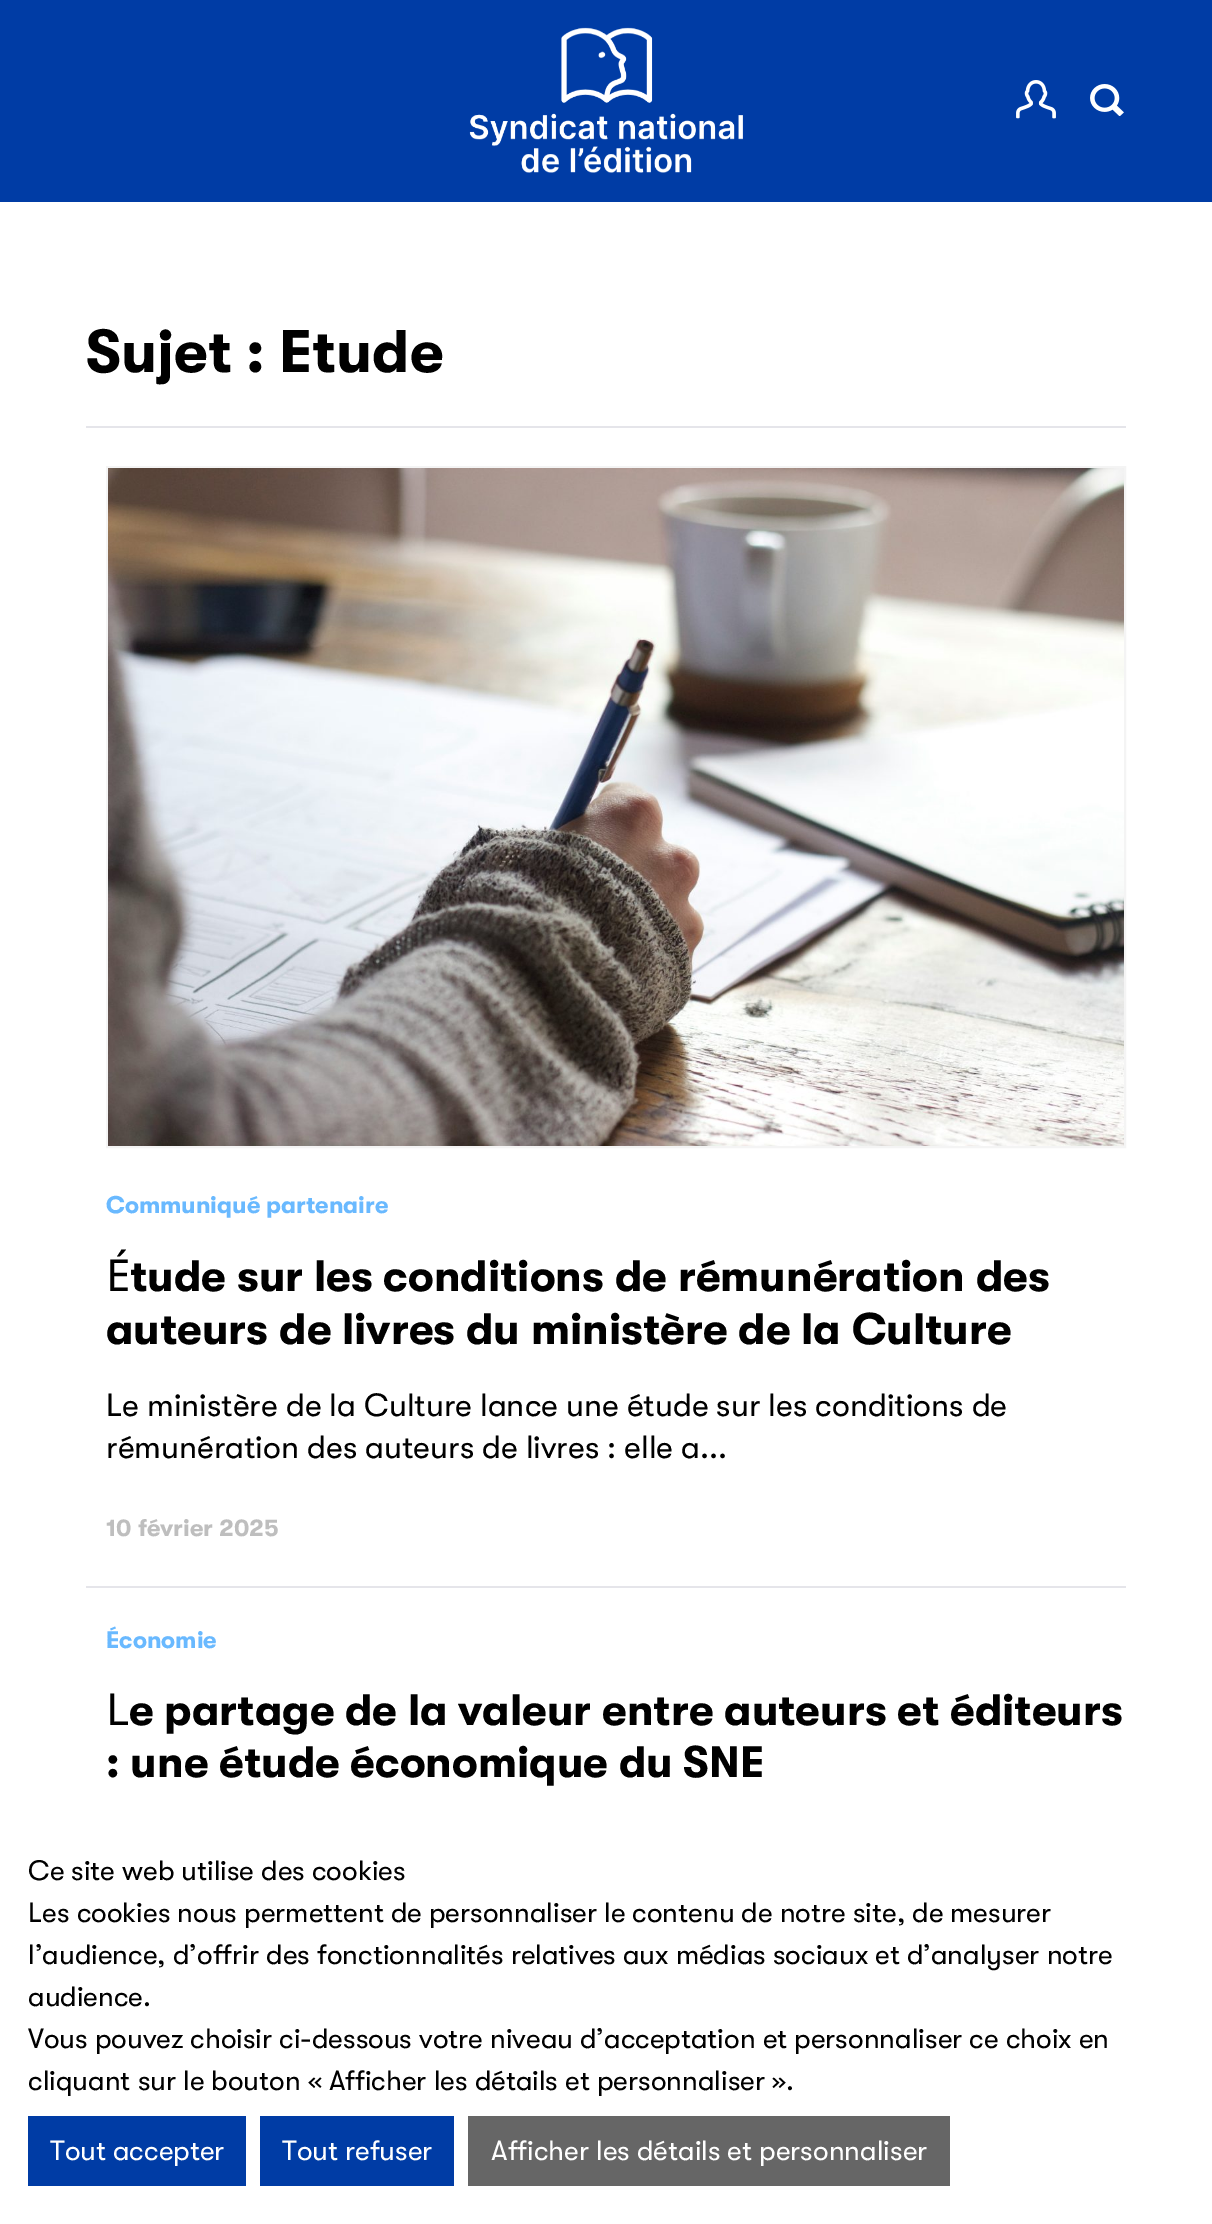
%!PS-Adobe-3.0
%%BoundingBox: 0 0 1212 2224
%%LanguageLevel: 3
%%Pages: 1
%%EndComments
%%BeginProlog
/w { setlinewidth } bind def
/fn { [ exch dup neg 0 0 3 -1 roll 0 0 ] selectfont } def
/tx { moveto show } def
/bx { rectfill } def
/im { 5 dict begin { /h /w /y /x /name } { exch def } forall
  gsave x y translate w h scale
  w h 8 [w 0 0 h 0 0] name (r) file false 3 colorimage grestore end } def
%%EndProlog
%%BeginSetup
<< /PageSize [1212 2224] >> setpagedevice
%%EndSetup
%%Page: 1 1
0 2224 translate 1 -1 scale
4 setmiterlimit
1 setgray
0 0 1212 2224 bx
0 0.235 0.647 setrgbcolor
0 0 1212 202 bx
(image0.raw) 469 27 274 146 im
(image1.raw) 1016 80 40 39 im
(image2.raw) 1090 84 34 32 im
/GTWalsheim-Bold 60 fn
0 setgray
(Sujet : Etude) 86 372 tx
0.898 0.898 0.918 setrgbcolor
86 426 1040 2 bx
0.957 setgray
2 w
107 467 1018 680 rectstroke
(image3.raw) 108 468 1016 678 im
/GTWalsheim-Bold 24 fn
0.412 0.725 1 setrgbcolor
(Communiqué partenaire) 106 1213 tx
/NotoSans-Regular 44 fn
0 setgray
(É) 106 1291 tx
/GTWalsheim-Bold 44 fn
(tude sur les conditions de rémunération des) 130 1291 tx
(auteurs de livres du ministère de la Culture) 106 1344 tx
/GTWalsheim-Regular 32 fn
(Le ministère de la Culture lance une étude sur les conditions de) 106 1416 tx
(rémunération des auteurs de livres : elle a...) 106 1458 tx
/GTWalsheim-Bold 24 fn
0.745 setgray
(10 février 2025) 106 1536 tx
0.898 0.898 0.918 setrgbcolor
86 1586 1040 2 bx
0.412 0.725 1 setrgbcolor
(Économie) 106 1648 tx
/NotoSans-Regular 44 fn
0 setgray
(L) 106 1725 tx
/GTWalsheim-Bold 44 fn
(e partage de la valeur entre auteurs et éditeurs) 129 1725 tx
(: une étude économique du SNE) 106 1777 tx
/GTWalsheim-Regular 28 fn
(Ce site web utilise des cookies) 28 1880 tx
(Les cookies nous permettent de personnaliser le contenu de notre site, de mesurer) 28 1922 tx
(l’audience, d’offrir des fonctionnalités relatives aux médias sociaux et d’analyser notre) 28 1964 tx
(audience.) 28 2006 tx
(Vous pouvez choisir ci-dessous votre niveau d’acceptation et personnaliser ce choix en) 28 2048 tx
(cliquant sur le bouton « Afficher les détails et personnaliser ».) 28 2090 tx
0 0.235 0.647 setrgbcolor
28 2116 218 70 bx
1 setgray
(Tout accepter) 50 2160 tx
0 0.235 0.647 setrgbcolor
260 2116 194 70 bx
1 setgray
(Tout refuser) 282 2160 tx
0.4 setgray
468 2116 482 70 bx
1 setgray
(Afficher les détails et personnaliser) 491 2160 tx
showpage
%%EOF
